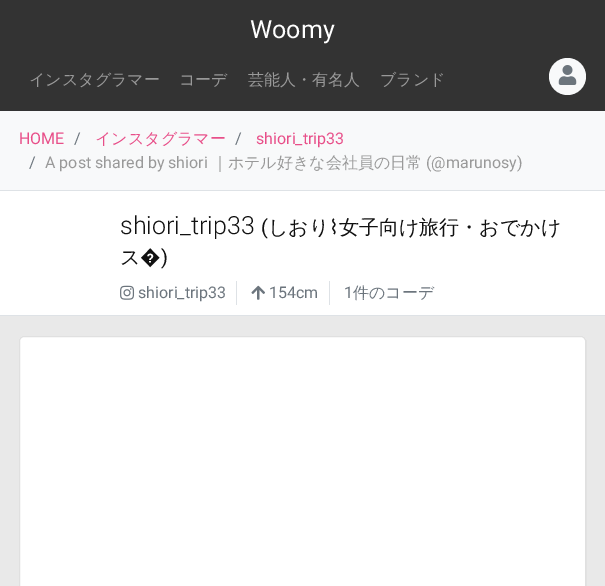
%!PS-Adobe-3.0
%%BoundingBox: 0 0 605 586
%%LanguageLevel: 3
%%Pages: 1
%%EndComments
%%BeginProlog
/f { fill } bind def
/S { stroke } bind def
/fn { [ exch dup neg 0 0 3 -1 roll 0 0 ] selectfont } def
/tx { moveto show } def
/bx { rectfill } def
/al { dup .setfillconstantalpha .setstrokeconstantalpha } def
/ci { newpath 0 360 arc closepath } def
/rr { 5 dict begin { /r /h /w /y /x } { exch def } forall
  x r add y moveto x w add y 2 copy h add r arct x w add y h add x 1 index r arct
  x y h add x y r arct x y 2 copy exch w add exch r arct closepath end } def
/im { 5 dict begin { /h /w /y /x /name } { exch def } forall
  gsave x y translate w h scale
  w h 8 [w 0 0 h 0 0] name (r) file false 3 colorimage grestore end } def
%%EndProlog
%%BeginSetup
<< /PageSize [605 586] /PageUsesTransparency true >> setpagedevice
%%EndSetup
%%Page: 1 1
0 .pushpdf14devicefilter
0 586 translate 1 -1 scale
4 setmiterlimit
0.914 setgray
0 0 605 586 bx
0.2 setgray
0 0 605 111 bx
/Roboto-Regular 25 fn
1 setgray
(Woomy) 250 38 tx
/WenQuanYiZenHei-Medium 16 fn
0.6 setgray
(インスタグラマー) 29 85 tx
(コーデ) 179 85 tx
(芸能人・有名人) 248 85 tx
(ブランド) 380 85 tx
0.973 0.976 0.98 setrgbcolor
567.5 76.5 18.5 ci f
(image0.raw) 558 65 19 20 im
0 111 605 79 bx
0.871 0.886 0.902 setrgbcolor
0 190 605 1 bx
/Roboto-Regular 16 fn
0.91 0.31 0.537 setrgbcolor
(HOME) 19 144 tx
0.424 0.459 0.49 setrgbcolor
(/) 74 144 tx
/WenQuanYiZenHei-Medium 16 fn
0.91 0.31 0.537 setrgbcolor
(インスタグラマー) 95 144 tx
/Roboto-Regular 16 fn
0.424 0.459 0.49 setrgbcolor
(/) 235 144 tx
0.91 0.31 0.537 setrgbcolor
(shiori_trip33) 256 144 tx
0.424 0.459 0.49 setrgbcolor
(/) 29 168 tx
0.6 setgray
(A post shared by shiori) 45 168 tx
/WenQuanYiZenHei-Medium 16 fn
(｜ホテル好きな会社員の日常) 212 168 tx
/Roboto-Regular 16 fn
(\(@marunosy\)) 426 168 tx
1 setgray
0 191 605 124 bx
0.871 0.886 0.902 setrgbcolor
0 315 605 1 bx
/Roboto-Light 25 fn
0.067 setgray
(shiori_trip33) 120 234 tx
/Roboto-Regular 20 fn
(\() 261 234 tx
/WenQuanYiZenHei-Medium 20 fn
(しおり) 268 234 tx
/DejaVuSans-Regular 20 fn
(⌇) 329 234 tx
/WenQuanYiZenHei-Medium 20 fn
(女子向け旅行・おでかけ) 339 234 tx
(ス) 120 264 tx
/Roboto-Regular 20 fn
(�\)) 140 264 tx
0.871 0.886 0.902 setrgbcolor
236 281 1 24 bx
(image1.raw) 120 285 15 15 im
/Roboto-Regular 16 fn
0.424 0.459 0.49 setrgbcolor
(shiori_trip33) 138 298 tx
0.871 0.886 0.902 setrgbcolor
329 281 1 24 bx
(image2.raw) 251 285 14 15 im
0.424 0.459 0.49 setrgbcolor
(154cm) 269 298 tx
(1) 344 298 tx
/WenQuanYiZenHei-Medium 16 fn
(件のコーデ) 353 298 tx
1 setgray
19 336 567 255 5 rr f
0.12 al
0 setgray
19.5 336.5 566 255 4.5 rr S
.poppdf14devicefilter showpage
%%EOF
